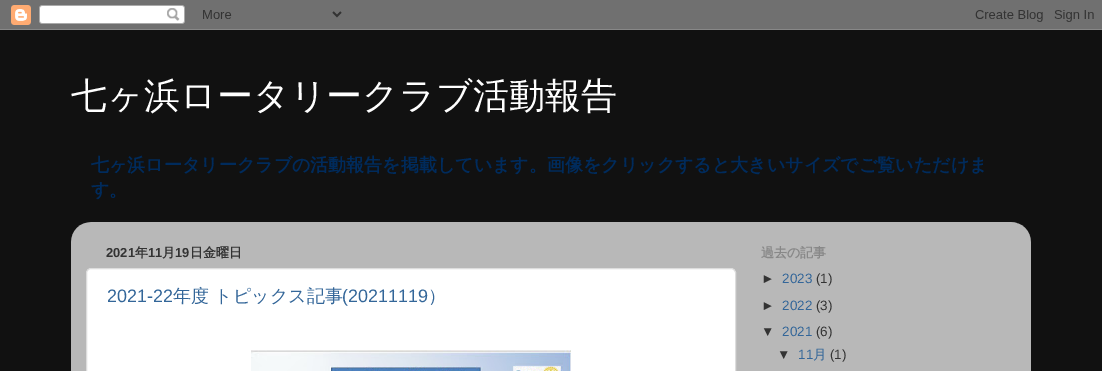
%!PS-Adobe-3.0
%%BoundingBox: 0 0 1102 371
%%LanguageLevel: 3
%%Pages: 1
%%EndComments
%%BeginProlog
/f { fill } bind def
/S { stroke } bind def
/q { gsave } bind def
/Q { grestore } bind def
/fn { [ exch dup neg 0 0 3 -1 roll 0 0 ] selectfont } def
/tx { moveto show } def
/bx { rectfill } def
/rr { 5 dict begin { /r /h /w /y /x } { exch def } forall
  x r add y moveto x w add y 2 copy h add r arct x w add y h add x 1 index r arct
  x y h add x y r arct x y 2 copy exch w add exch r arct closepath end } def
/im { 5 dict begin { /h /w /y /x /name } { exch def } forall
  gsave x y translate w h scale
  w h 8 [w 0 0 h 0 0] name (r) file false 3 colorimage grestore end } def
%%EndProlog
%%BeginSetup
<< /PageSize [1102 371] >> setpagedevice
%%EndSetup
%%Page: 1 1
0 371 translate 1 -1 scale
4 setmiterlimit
0.067 setgray
0 0 1102 371 bx
(image0.raw) 0 0 1102 30 im
/WenQuanYiZenHei-Medium 36 fn
1 setgray
(七ヶ浜ロータリークラブ活動報告) 71 108 tx
/WenQuanYiZenHei-Bold 18 fn
0 0.169 0.361 setrgbcolor
(七ヶ浜ロータリークラブの活動報告を掲載しています。画像をクリックすると大きいサイズでご覧いただけま) 91 171 tx
(す。) 91 196 tx
(image1.raw) 71 222 960 149 im
/LiberationSans-Bold 13 fn
0.2 setgray
(2021) 106 257 tx
/WenQuanYiZenHei-Bold 13 fn
(年) 135 257 tx
/LiberationSans-Bold 13 fn
(11) 148 257 tx
/WenQuanYiZenHei-Bold 13 fn
(月) 162 257 tx
/LiberationSans-Bold 13 fn
(19) 175 257 tx
/WenQuanYiZenHei-Bold 13 fn
(日金曜日) 190 257 tx
1 setgray
86.5 268.5 649 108 4.5 rr q f Q
0.867 setgray
S
/LiberationSans-Regular 18 fn
0.2 0.4 0.6 setrgbcolor
(2021-22) 107 302 tx
/WenQuanYiZenHei-Medium 18 fn
(年度 トピックス記事) 173 302 tx
/LiberationSans-Regular 18 fn
(\(20211119) 342 302 tx
/WenQuanYiZenHei-Medium 18 fn
(）) 428 302 tx
(image2.raw) 251 350 320 21 im
/WenQuanYiZenHei-Bold 13 fn
0.533 setgray
(過去の記事) 761 257 tx
/LiberationSans-Regular 13.5 fn
0.2 setgray
(►) 761 283 tx
0.2 0.4 0.6 setrgbcolor
(2023) 782 283 tx
0.2 setgray
(\(1\)) 816 283 tx
(►) 761 310 tx
0.2 0.4 0.6 setrgbcolor
(2022) 782 310 tx
0.2 setgray
(\(3\)) 816 310 tx
(▼) 761 336 tx
0.2 0.4 0.6 setrgbcolor
(2021) 782 336 tx
0.2 setgray
(\(6\)) 816 336 tx
(▼) 777 359 tx
0.2 0.4 0.6 setrgbcolor
(11) 798 359 tx
/WenQuanYiZenHei-Medium 13.5 fn
(月) 813 359 tx
/LiberationSans-Regular 13.5 fn
0.2 setgray
(\(1\)) 830 359 tx
showpage
%%EOF
